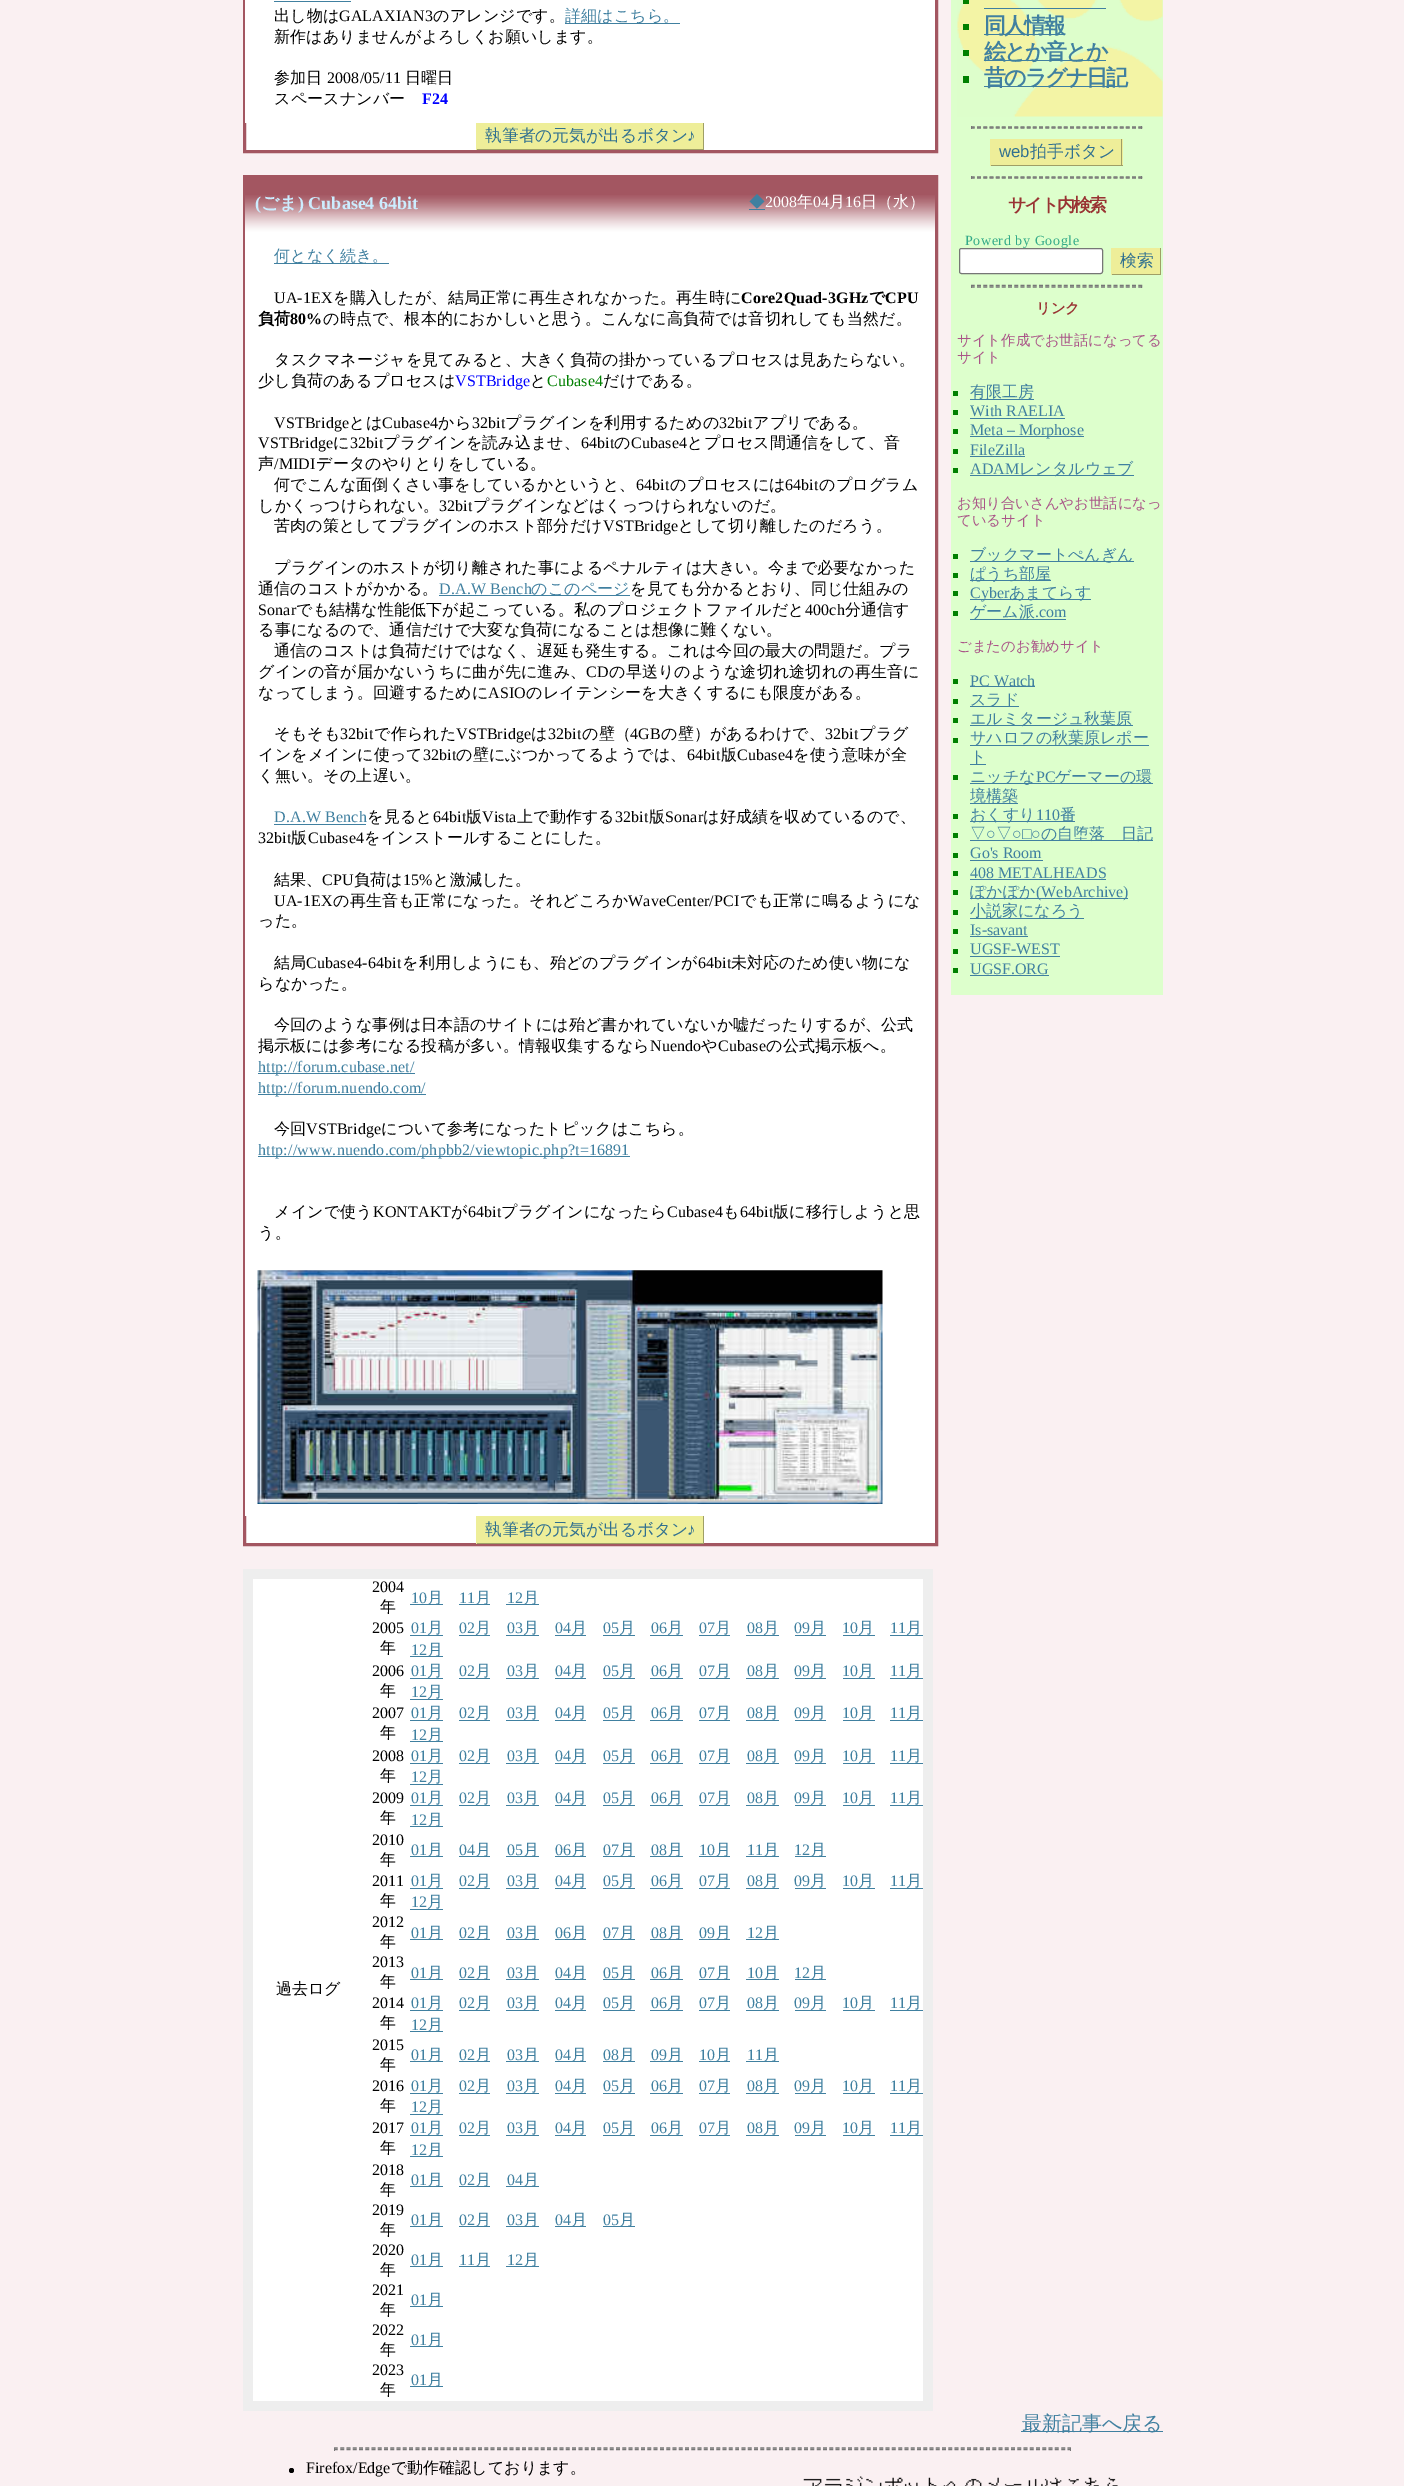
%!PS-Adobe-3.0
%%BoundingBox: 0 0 1404 2486
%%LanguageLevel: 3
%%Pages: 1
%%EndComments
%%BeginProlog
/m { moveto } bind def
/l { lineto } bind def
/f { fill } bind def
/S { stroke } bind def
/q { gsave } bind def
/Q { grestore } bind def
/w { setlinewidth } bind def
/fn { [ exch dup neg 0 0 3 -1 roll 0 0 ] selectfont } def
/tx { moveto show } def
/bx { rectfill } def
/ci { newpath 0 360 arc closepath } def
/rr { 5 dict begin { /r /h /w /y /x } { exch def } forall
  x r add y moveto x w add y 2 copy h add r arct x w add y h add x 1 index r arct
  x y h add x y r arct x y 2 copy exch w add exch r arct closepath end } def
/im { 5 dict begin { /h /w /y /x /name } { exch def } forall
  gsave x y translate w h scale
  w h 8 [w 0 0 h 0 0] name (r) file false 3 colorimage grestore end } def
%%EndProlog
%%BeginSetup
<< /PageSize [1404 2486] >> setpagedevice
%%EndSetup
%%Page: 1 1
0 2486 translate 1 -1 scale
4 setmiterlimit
0.98 0.941 0.949 setrgbcolor
0 0 1404 2486 bx
1 setgray
246 123 689 27 bx
0.639 0.337 0.38 setrgbcolor
3 w
244.5 -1.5 692 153 rectstroke
1 setgray
245 0 690 123 bx
0.251 0.502 0.627 setrgbcolor
274 1 77 1 bx
/WenQuanYiZenHei-Medium 16 fn
0 setgray
274 21 m 0.15 0 (出し物は) ashow
/LiberationSerif-Regular 16 fn
339 21 m 0.15 0 (GALAXIAN3) ashow
/WenQuanYiZenHei-Medium 16 fn
433 21 m 0.15 0 (のアレンジです。) ashow
0.251 0.502 0.627 setrgbcolor
565 23 115 1 bx
565 21 m 0.15 0 (詳細はこちら。) ashow
0 setgray
274 42 m 0.15 0 (新作はありませんがよろしくお願いします。) ashow
274 83 m 0.15 0 (参加日) ashow
/LiberationSerif-Regular 16 fn
327 83 m 0.15 0 (2008/05/11) ashow
/WenQuanYiZenHei-Medium 16 fn
405 83 m 0.15 0 (日曜日) ashow
274 104 m 0.15 0 (スペースナンバー) ashow
/LiberationSerif-Bold 16 fn
0 0 1 setrgbcolor
422 104 m 0.15 0 (F24) ashow
0.933 0.933 0.6 setrgbcolor
477 123 226 26 bx
0.624 0.624 0.4 setrgbcolor
703 123 1 27 bx
476 149 228 1 bx
0.933 0.933 0.6 setrgbcolor
476 123 1 27 bx
/WenQuanYiZenHei-Medium 16.75 fn
0.188 0.439 0.565 setrgbcolor
(執筆者の元気が出るボタン) 485 141 tx
/LiberationSans-Regular 16.75 fn
(♪) 687 141 tx
1 setgray
246 1516 689 27 bx
0.639 0.337 0.38 setrgbcolor
244.5 176.5 692 1368 rectstroke
246 178 689 17 bx
(image0.raw) 245 195 690 39 im
/LiberationSerif-Bold 18 fn
0.8 0.929 1 setrgbcolor
(\() 255 209 tx
/WenQuanYiZenHei-Bold 18 fn
(ごま) 261 209 tx
/LiberationSerif-Bold 18 fn
(\) Cubase4 64bit) 298 209 tx
/WenQuanYiZenHei-Medium 16 fn
0.251 0.502 0.627 setrgbcolor
(◆) 749 207 tx
749 209 16 1 bx
/LiberationSerif-Regular 16 fn
1 setgray
(2008) 765 207 tx
/WenQuanYiZenHei-Medium 16 fn
(年) 797 207 tx
/LiberationSerif-Regular 16 fn
(04) 813 207 tx
/WenQuanYiZenHei-Medium 16 fn
(月) 829 207 tx
/LiberationSerif-Regular 16 fn
(16) 845 207 tx
/WenQuanYiZenHei-Medium 16 fn
(日（水）) 861 207 tx
245 234 690 1282 bx
0.251 0.502 0.627 setrgbcolor
274 263 115 1 bx
274 261 m 0.15 0 (何となく続き。) ashow
/LiberationSerif-Regular 16 fn
0 setgray
274 303 m 0.15 0 (UA-1EX) ashow
/WenQuanYiZenHei-Medium 16 fn
333 303 m 0.15 0 (を購入したが、結局正常に再生されなかった。再生時に) ashow
/LiberationSerif-Bold 16 fn
741 303 m 0.15 0 (Core2Quad-3GHz) ashow
/WenQuanYiZenHei-Bold 16 fn
869 303 m 0.15 0 (で) ashow
/LiberationSerif-Bold 16 fn
885 303 m 0.15 0 (CPU) ashow
/WenQuanYiZenHei-Bold 16 fn
258 324 m 0.15 0 (負荷) ashow
/LiberationSerif-Bold 16 fn
290 324 m 0.15 0 (80%) ashow
/WenQuanYiZenHei-Medium 16 fn
323 324 m 0.15 0 (の時点で、根本的におかしいと思う。こんなに高負荷では音切れしても当然だ。) ashow
274 365 m 0.15 0 (タスクマネージャを見てみると、大きく負荷の掛かっているプロセスは見あたらない。) ashow
258 386 m 0.15 0 (少し負荷のあるプロセスは) ashow
/LiberationSerif-Regular 16 fn
0 0 1 setrgbcolor
455 386 m 0.15 0 (VSTBridge) ashow
/WenQuanYiZenHei-Medium 16 fn
0 setgray
530 386 m 0.15 0 (と) ashow
/LiberationSerif-Regular 16 fn
0 0.502 0 setrgbcolor
547 386 m 0.15 0 (Cubase4) ashow
/WenQuanYiZenHei-Medium 16 fn
0 setgray
603 386 m 0.15 0 (だけである。) ashow
/LiberationSerif-Regular 16 fn
274 428 m 0.15 0 (VSTBridge) ashow
/WenQuanYiZenHei-Medium 16 fn
349 428 m 0.15 0 (とは) ashow
/LiberationSerif-Regular 16 fn
382 428 m 0.15 0 (Cubase4) ashow
/WenQuanYiZenHei-Medium 16 fn
438 428 m 0.15 0 (から) ashow
/LiberationSerif-Regular 16 fn
472 428 m 0.15 0 (32bit) ashow
/WenQuanYiZenHei-Medium 16 fn
505 428 m 0.15 0 (プラグインを利用するための) ashow
/LiberationSerif-Regular 16 fn
719 428 m 0.15 0 (32bit) ashow
/WenQuanYiZenHei-Medium 16 fn
753 428 m 0.15 0 (アプリである。) ashow
/LiberationSerif-Regular 16 fn
258 448 m 0.15 0 (VSTBridge) ashow
/WenQuanYiZenHei-Medium 16 fn
333 448 m 0.15 0 (に) ashow
/LiberationSerif-Regular 16 fn
350 448 m 0.15 0 (32bit) ashow
/WenQuanYiZenHei-Medium 16 fn
383 448 m 0.15 0 (プラグインを読み込ませ、) ashow
/LiberationSerif-Regular 16 fn
581 448 m 0.15 0 (64bit) ashow
/WenQuanYiZenHei-Medium 16 fn
614 448 m 0.15 0 (の) ashow
/LiberationSerif-Regular 16 fn
631 448 m 0.15 0 (Cubase4) ashow
/WenQuanYiZenHei-Medium 16 fn
687 448 m 0.15 0 (とプロセス間通信をして、音) ashow
258 469 m 0.15 0 (声) ashow
/LiberationSerif-Regular 16 fn
274 469 m 0.15 0 (/MIDI) ashow
/WenQuanYiZenHei-Medium 16 fn
316 469 m 0.15 0 (データのやりとりをしている。) ashow
274 490 m 0.15 0 (何でこんな面倒くさい事をしているかというと、) ashow
/LiberationSerif-Regular 16 fn
636 490 m 0.15 0 (64bit) ashow
/WenQuanYiZenHei-Medium 16 fn
670 490 m 0.15 0 (のプロセスには) ashow
/LiberationSerif-Regular 16 fn
785 490 m 0.15 0 (64bit) ashow
/WenQuanYiZenHei-Medium 16 fn
819 490 m 0.15 0 (のプログラム) ashow
258 511 m 0.15 0 (しかくっつけられない。) ashow
/LiberationSerif-Regular 16 fn
439 511 m 0.15 0 (32bit) ashow
/WenQuanYiZenHei-Medium 16 fn
473 511 m 0.15 0 (プラグインなどはくっつけられないのだ。) ashow
274 531 m 0.15 0 (苦肉の策としてプラグインのホスト部分だけ) ashow
/LiberationSerif-Regular 16 fn
603 531 m 0.15 0 (VSTBridge) ashow
/WenQuanYiZenHei-Medium 16 fn
678 531 m 0.15 0 (として切り離したのだろう。) ashow
274 573 m 0.15 0 (プラグインのホストが切り離された事によるペナルティは大きい。今まで必要なかった) ashow
258 594 m 0.15 0 (通信のコストがかかる。) ashow
/LiberationSerif-Regular 16 fn
0.251 0.502 0.627 setrgbcolor
439 594 m 0.15 0 (D.A.W Bench) ashow
439 595 191 1 bx
/WenQuanYiZenHei-Medium 16 fn
531 594 m 0.15 0 (のこのページ) ashow
0 setgray
630 594 m 0.15 0 (を見ても分かるとおり、同じ仕組みの) ashow
/LiberationSerif-Regular 16 fn
258 615 m 0.15 0 (Sonar) ashow
/WenQuanYiZenHei-Medium 16 fn
296 615 m 0.15 0 (でも結構な性能低下が起こっている。私のプロジェクトファイルだと) ashow
/LiberationSerif-Regular 16 fn
805 615 m 0.15 0 (400ch) ashow
/WenQuanYiZenHei-Medium 16 fn
845 615 m 0.15 0 (分通信す) ashow
258 635 m 0.15 0 (る事になるので、通信だけで大変な負荷になることは想像に難くない。) ashow
274 656 m 0.15 0 (通信のコストは負荷だけではなく、遅延も発生する。これは今回の最大の問題だ。プラ) ashow
258 677 m 0.15 0 (グインの音が届かないうちに曲が先に進み、) ashow
/LiberationSerif-Regular 16 fn
586 677 m 0.15 0 (CD) ashow
/WenQuanYiZenHei-Medium 16 fn
609 677 m 0.15 0 (の早送りのような途切れ途切れの再生音に) ashow
258 698 m 0.15 0 (なってしまう。回避するために) ashow
/LiberationSerif-Regular 16 fn
488 698 m 0.15 0 (ASIO) ashow
/WenQuanYiZenHei-Medium 16 fn
526 698 m 0.15 0 (のレイテンシーを大きくするにも限度がある。) ashow
274 739 m 0.15 0 (そもそも) ashow
/LiberationSerif-Regular 16 fn
340 739 m 0.15 0 (32bit) ashow
/WenQuanYiZenHei-Medium 16 fn
374 739 m 0.15 0 (で作られた) ashow
/LiberationSerif-Regular 16 fn
456 739 m 0.15 0 (VSTBridge) ashow
/WenQuanYiZenHei-Medium 16 fn
531 739 m 0.15 0 (は) ashow
/LiberationSerif-Regular 16 fn
548 739 m 0.15 0 (32bit) ashow
/WenQuanYiZenHei-Medium 16 fn
582 739 m 0.15 0 (の壁（) ashow
/LiberationSerif-Regular 16 fn
630 739 m 0.15 0 (4GB) ashow
/WenQuanYiZenHei-Medium 16 fn
661 739 m 0.15 0 (の壁）があるわけで、) ashow
/LiberationSerif-Regular 16 fn
825 739 m 0.15 0 (32bit) ashow
/WenQuanYiZenHei-Medium 16 fn
859 739 m 0.15 0 (プラグ) ashow
258 760 m 0.15 0 (インをメインに使って) ashow
/LiberationSerif-Regular 16 fn
423 760 m 0.15 0 (32bit) ashow
/WenQuanYiZenHei-Medium 16 fn
456 760 m 0.15 0 (の壁にぶつかってるようでは、) ashow
/LiberationSerif-Regular 16 fn
687 760 m 0.15 0 (64bit) ashow
/WenQuanYiZenHei-Medium 16 fn
721 760 m 0.15 0 (版) ashow
/LiberationSerif-Regular 16 fn
737 760 m 0.15 0 (Cubase4) ashow
/WenQuanYiZenHei-Medium 16 fn
793 760 m 0.15 0 (を使う意味が全) ashow
258 781 m 0.15 0 (く無い。その上遅い。) ashow
/LiberationSerif-Regular 16 fn
0.251 0.502 0.627 setrgbcolor
274 822 m 0.15 0 (D.A.W Bench) ashow
274 824 92 1 bx
/WenQuanYiZenHei-Medium 16 fn
0 setgray
367 822 m 0.15 0 (を見ると) ashow
/LiberationSerif-Regular 16 fn
433 822 m 0.15 0 (64bit) ashow
/WenQuanYiZenHei-Medium 16 fn
466 822 m 0.15 0 (版) ashow
/LiberationSerif-Regular 16 fn
482 822 m 0.15 0 (Vista) ashow
/WenQuanYiZenHei-Medium 16 fn
517 822 m 0.15 0 (上で動作する) ashow
/LiberationSerif-Regular 16 fn
615 822 m 0.15 0 (32bit) ashow
/WenQuanYiZenHei-Medium 16 fn
649 822 m 0.15 0 (版) ashow
/LiberationSerif-Regular 16 fn
665 822 m 0.15 0 (Sonar) ashow
/WenQuanYiZenHei-Medium 16 fn
703 822 m 0.15 0 (は好成績を収めているので、) ashow
/LiberationSerif-Regular 16 fn
258 843 m 0.15 0 (32bit) ashow
/WenQuanYiZenHei-Medium 16 fn
291 843 m 0.15 0 (版) ashow
/LiberationSerif-Regular 16 fn
308 843 m 0.15 0 (Cubase4) ashow
/WenQuanYiZenHei-Medium 16 fn
364 843 m 0.15 0 (をインストールすることにした。) ashow
274 885 m 0.15 0 (結果、) ashow
/LiberationSerif-Regular 16 fn
322 885 m 0.15 0 (CPU) ashow
/WenQuanYiZenHei-Medium 16 fn
354 885 m 0.15 0 (負荷は) ashow
/LiberationSerif-Regular 16 fn
403 885 m 0.15 0 (15%) ashow
/WenQuanYiZenHei-Medium 16 fn
433 885 m 0.15 0 (と激減した。) ashow
/LiberationSerif-Regular 16 fn
274 906 m 0.15 0 (UA-1EX) ashow
/WenQuanYiZenHei-Medium 16 fn
333 906 m 0.15 0 (の再生音も正常になった。それどころか) ashow
/LiberationSerif-Regular 16 fn
628 906 m 0.15 0 (WaveCenter/PCI) ashow
/WenQuanYiZenHei-Medium 16 fn
740 906 m 0.15 0 (でも正常に鳴るようにな) ashow
258 926 m 0.15 0 (った。) ashow
274 968 m 0.15 0 (結局) ashow
/LiberationSerif-Regular 16 fn
306 968 m 0.15 0 (Cubase4-64bit) ashow
/WenQuanYiZenHei-Medium 16 fn
402 968 m 0.15 0 (を利用しようにも、殆どのプラグインが) ashow
/LiberationSerif-Regular 16 fn
698 968 m 0.15 0 (64bit) ashow
/WenQuanYiZenHei-Medium 16 fn
731 968 m 0.15 0 (未対応のため使い物にな) ashow
258 989 m 0.15 0 (らなかった。) ashow
274 1030 m 0.15 0 (今回のような事例は日本語のサイトには殆ど書かれていないか嘘だったりするが、公式) ashow
258 1051 m 0.15 0 (掲示板には参考になる投稿が多い。情報収集するなら) ashow
/LiberationSerif-Regular 16 fn
650 1051 m 0.15 0 (Nuendo) ashow
/WenQuanYiZenHei-Medium 16 fn
701 1051 m 0.15 0 (や) ashow
/LiberationSerif-Regular 16 fn
718 1051 m 0.15 0 (Cubase) ashow
/WenQuanYiZenHei-Medium 16 fn
766 1051 m 0.15 0 (の公式掲示板へ。) ashow
0.251 0.502 0.627 setrgbcolor
258 1073 157 1 bx
/LiberationSerif-Regular 16 fn
258 1072 m 0.15 0 (http://forum.cubase.net/) ashow
258 1094 168 1 bx
258 1093 m 0.15 0 (http://forum.nuendo.com/) ashow
/WenQuanYiZenHei-Medium 16 fn
0 setgray
274 1134 m 0.15 0 (今回) ashow
/LiberationSerif-Regular 16 fn
306 1134 m 0.15 0 (VSTBridge) ashow
/WenQuanYiZenHei-Medium 16 fn
381 1134 m 0.15 0 (について参考になったトピックはこちら。) ashow
0.251 0.502 0.627 setrgbcolor
258 1156 372 1 bx
/LiberationSerif-Regular 16 fn
258 1155 m 0.15 0 (http://www.nuendo.com/phpbb2/viewtopic.php?t=16891) ashow
/WenQuanYiZenHei-Medium 16 fn
0 setgray
274 1217 m 0.15 0 (メインで使う) ashow
/LiberationSerif-Regular 16 fn
373 1217 m 0.15 0 (KONTAKT) ashow
/WenQuanYiZenHei-Medium 16 fn
451 1217 m 0.15 0 (が) ashow
/LiberationSerif-Regular 16 fn
468 1217 m 0.15 0 (64bit) ashow
/WenQuanYiZenHei-Medium 16 fn
501 1217 m 0.15 0 (プラグインになったら) ashow
/LiberationSerif-Regular 16 fn
667 1217 m 0.15 0 (Cubase4) ashow
/WenQuanYiZenHei-Medium 16 fn
723 1217 m 0.15 0 (も) ashow
/LiberationSerif-Regular 16 fn
740 1217 m 0.15 0 (64bit) ashow
/WenQuanYiZenHei-Medium 16 fn
773 1217 m 0.15 0 (版に移行しようと思) ashow
258 1238 m 0.15 0 (う。) ashow
(image1.raw) 257 1270 626 234 im
0.933 0.933 0.6 setrgbcolor
477 1516 226 27 bx
0.624 0.624 0.4 setrgbcolor
703 1516 1 28 bx
476 1543 228 1 bx
0.933 0.933 0.6 setrgbcolor
476 1516 1 28 bx
/WenQuanYiZenHei-Medium 16.75 fn
0.188 0.439 0.565 setrgbcolor
(執筆者の元気が出るボタン) 485 1535 tx
/LiberationSans-Regular 16.75 fn
(♪) 687 1535 tx
0.933 setgray
243 1569 690 842 bx
1 setgray
365 1579 558 40 bx
/LiberationSerif-Regular 16 fn
0 setgray
(2004) 372 1592 tx
/WenQuanYiZenHei-Medium 16 fn
(年) 380 1612 tx
/LiberationSerif-Regular 16 fn
0.251 0.502 0.627 setrgbcolor
(10) 411 1603 tx
410 1604 33 1 bx
/WenQuanYiZenHei-Medium 16 fn
(月) 427 1603 tx
/LiberationSerif-Regular 16 fn
(11) 459 1603 tx
459 1604 31 1 bx
/WenQuanYiZenHei-Medium 16 fn
(月) 475 1603 tx
/LiberationSerif-Regular 16 fn
(12) 507 1603 tx
506 1604 33 1 bx
/WenQuanYiZenHei-Medium 16 fn
(月) 523 1603 tx
1 setgray
253 1579 112 822 bx
0 setgray
(過去ログ) 276 1994 tx
1 setgray
365 1619 558 42 bx
/LiberationSerif-Regular 16 fn
0 setgray
(2005) 372 1633 tx
/WenQuanYiZenHei-Medium 16 fn
(年) 380 1653 tx
/LiberationSerif-Regular 16 fn
0.251 0.502 0.627 setrgbcolor
(01) 411 1633 tx
410 1635 33 1 bx
/WenQuanYiZenHei-Medium 16 fn
(月) 427 1633 tx
/LiberationSerif-Regular 16 fn
(02) 459 1633 tx
459 1635 31 1 bx
/WenQuanYiZenHei-Medium 16 fn
(月) 475 1633 tx
/LiberationSerif-Regular 16 fn
(03) 507 1633 tx
506 1635 33 1 bx
/WenQuanYiZenHei-Medium 16 fn
(月) 523 1633 tx
/LiberationSerif-Regular 16 fn
(04) 555 1633 tx
555 1635 31 1 bx
/WenQuanYiZenHei-Medium 16 fn
(月) 571 1633 tx
/LiberationSerif-Regular 16 fn
(05) 603 1633 tx
603 1635 32 1 bx
/WenQuanYiZenHei-Medium 16 fn
(月) 619 1633 tx
/LiberationSerif-Regular 16 fn
(06) 651 1633 tx
650 1635 33 1 bx
/WenQuanYiZenHei-Medium 16 fn
(月) 667 1633 tx
/LiberationSerif-Regular 16 fn
(07) 699 1633 tx
699 1635 31 1 bx
/WenQuanYiZenHei-Medium 16 fn
(月) 715 1633 tx
/LiberationSerif-Regular 16 fn
(08) 747 1633 tx
746 1635 33 1 bx
/WenQuanYiZenHei-Medium 16 fn
(月) 763 1633 tx
/LiberationSerif-Regular 16 fn
(09) 794 1633 tx
795 1635 31 1 bx
/WenQuanYiZenHei-Medium 16 fn
(月) 810 1633 tx
/LiberationSerif-Regular 16 fn
(10) 842 1633 tx
843 1635 32 1 bx
/WenQuanYiZenHei-Medium 16 fn
(月) 858 1633 tx
/LiberationSerif-Regular 16 fn
(11) 890 1633 tx
890 1635 33 1 bx
/WenQuanYiZenHei-Medium 16 fn
(月) 906 1633 tx
/LiberationSerif-Regular 16 fn
(12) 411 1655 tx
410 1656 33 1 bx
/WenQuanYiZenHei-Medium 16 fn
(月) 427 1655 tx
1 setgray
365 1661 558 43 bx
/LiberationSerif-Regular 16 fn
0 setgray
(2006) 372 1676 tx
/WenQuanYiZenHei-Medium 16 fn
(年) 380 1696 tx
/LiberationSerif-Regular 16 fn
0.251 0.502 0.627 setrgbcolor
(01) 411 1676 tx
410 1678 33 1 bx
/WenQuanYiZenHei-Medium 16 fn
(月) 427 1676 tx
/LiberationSerif-Regular 16 fn
(02) 459 1676 tx
459 1678 31 1 bx
/WenQuanYiZenHei-Medium 16 fn
(月) 475 1676 tx
/LiberationSerif-Regular 16 fn
(03) 507 1676 tx
506 1678 33 1 bx
/WenQuanYiZenHei-Medium 16 fn
(月) 523 1676 tx
/LiberationSerif-Regular 16 fn
(04) 555 1676 tx
555 1678 31 1 bx
/WenQuanYiZenHei-Medium 16 fn
(月) 571 1676 tx
/LiberationSerif-Regular 16 fn
(05) 603 1676 tx
603 1678 32 1 bx
/WenQuanYiZenHei-Medium 16 fn
(月) 619 1676 tx
/LiberationSerif-Regular 16 fn
(06) 651 1676 tx
650 1678 33 1 bx
/WenQuanYiZenHei-Medium 16 fn
(月) 667 1676 tx
/LiberationSerif-Regular 16 fn
(07) 699 1676 tx
699 1678 31 1 bx
/WenQuanYiZenHei-Medium 16 fn
(月) 715 1676 tx
/LiberationSerif-Regular 16 fn
(08) 747 1676 tx
746 1678 33 1 bx
/WenQuanYiZenHei-Medium 16 fn
(月) 763 1676 tx
/LiberationSerif-Regular 16 fn
(09) 794 1676 tx
795 1678 31 1 bx
/WenQuanYiZenHei-Medium 16 fn
(月) 810 1676 tx
/LiberationSerif-Regular 16 fn
(10) 842 1676 tx
843 1678 32 1 bx
/WenQuanYiZenHei-Medium 16 fn
(月) 858 1676 tx
/LiberationSerif-Regular 16 fn
(11) 890 1676 tx
890 1678 33 1 bx
/WenQuanYiZenHei-Medium 16 fn
(月) 906 1676 tx
/LiberationSerif-Regular 16 fn
(12) 411 1697 tx
410 1699 33 1 bx
/WenQuanYiZenHei-Medium 16 fn
(月) 427 1697 tx
1 setgray
365 1704 558 42 bx
/LiberationSerif-Regular 16 fn
0 setgray
(2007) 372 1718 tx
/WenQuanYiZenHei-Medium 16 fn
(年) 380 1738 tx
/LiberationSerif-Regular 16 fn
0.251 0.502 0.627 setrgbcolor
(01) 411 1718 tx
410 1720 33 1 bx
/WenQuanYiZenHei-Medium 16 fn
(月) 427 1718 tx
/LiberationSerif-Regular 16 fn
(02) 459 1718 tx
459 1720 31 1 bx
/WenQuanYiZenHei-Medium 16 fn
(月) 475 1718 tx
/LiberationSerif-Regular 16 fn
(03) 507 1718 tx
506 1720 33 1 bx
/WenQuanYiZenHei-Medium 16 fn
(月) 523 1718 tx
/LiberationSerif-Regular 16 fn
(04) 555 1718 tx
555 1720 31 1 bx
/WenQuanYiZenHei-Medium 16 fn
(月) 571 1718 tx
/LiberationSerif-Regular 16 fn
(05) 603 1718 tx
603 1720 32 1 bx
/WenQuanYiZenHei-Medium 16 fn
(月) 619 1718 tx
/LiberationSerif-Regular 16 fn
(06) 651 1718 tx
650 1720 33 1 bx
/WenQuanYiZenHei-Medium 16 fn
(月) 667 1718 tx
/LiberationSerif-Regular 16 fn
(07) 699 1718 tx
699 1720 31 1 bx
/WenQuanYiZenHei-Medium 16 fn
(月) 715 1718 tx
/LiberationSerif-Regular 16 fn
(08) 747 1718 tx
746 1720 33 1 bx
/WenQuanYiZenHei-Medium 16 fn
(月) 763 1718 tx
/LiberationSerif-Regular 16 fn
(09) 794 1718 tx
795 1720 31 1 bx
/WenQuanYiZenHei-Medium 16 fn
(月) 810 1718 tx
/LiberationSerif-Regular 16 fn
(10) 842 1718 tx
843 1720 32 1 bx
/WenQuanYiZenHei-Medium 16 fn
(月) 858 1718 tx
/LiberationSerif-Regular 16 fn
(11) 890 1718 tx
890 1720 33 1 bx
/WenQuanYiZenHei-Medium 16 fn
(月) 906 1718 tx
/LiberationSerif-Regular 16 fn
(12) 411 1740 tx
410 1741 33 1 bx
/WenQuanYiZenHei-Medium 16 fn
(月) 427 1740 tx
1 setgray
365 1746 558 43 bx
/LiberationSerif-Regular 16 fn
0 setgray
(2008) 372 1761 tx
/WenQuanYiZenHei-Medium 16 fn
(年) 380 1781 tx
/LiberationSerif-Regular 16 fn
0.251 0.502 0.627 setrgbcolor
(01) 411 1761 tx
410 1763 33 1 bx
/WenQuanYiZenHei-Medium 16 fn
(月) 427 1761 tx
/LiberationSerif-Regular 16 fn
(02) 459 1761 tx
459 1763 31 1 bx
/WenQuanYiZenHei-Medium 16 fn
(月) 475 1761 tx
/LiberationSerif-Regular 16 fn
(03) 507 1761 tx
506 1763 33 1 bx
/WenQuanYiZenHei-Medium 16 fn
(月) 523 1761 tx
/LiberationSerif-Regular 16 fn
(04) 555 1761 tx
555 1763 31 1 bx
/WenQuanYiZenHei-Medium 16 fn
(月) 571 1761 tx
/LiberationSerif-Regular 16 fn
(05) 603 1761 tx
603 1763 32 1 bx
/WenQuanYiZenHei-Medium 16 fn
(月) 619 1761 tx
/LiberationSerif-Regular 16 fn
(06) 651 1761 tx
650 1763 33 1 bx
/WenQuanYiZenHei-Medium 16 fn
(月) 667 1761 tx
/LiberationSerif-Regular 16 fn
(07) 699 1761 tx
699 1763 31 1 bx
/WenQuanYiZenHei-Medium 16 fn
(月) 715 1761 tx
/LiberationSerif-Regular 16 fn
(08) 747 1761 tx
746 1763 33 1 bx
/WenQuanYiZenHei-Medium 16 fn
(月) 763 1761 tx
/LiberationSerif-Regular 16 fn
(09) 794 1761 tx
795 1763 31 1 bx
/WenQuanYiZenHei-Medium 16 fn
(月) 810 1761 tx
/LiberationSerif-Regular 16 fn
(10) 842 1761 tx
843 1763 32 1 bx
/WenQuanYiZenHei-Medium 16 fn
(月) 858 1761 tx
/LiberationSerif-Regular 16 fn
(11) 890 1761 tx
890 1763 33 1 bx
/WenQuanYiZenHei-Medium 16 fn
(月) 906 1761 tx
/LiberationSerif-Regular 16 fn
(12) 411 1782 tx
410 1784 33 1 bx
/WenQuanYiZenHei-Medium 16 fn
(月) 427 1782 tx
1 setgray
365 1789 558 42 bx
/LiberationSerif-Regular 16 fn
0 setgray
(2009) 372 1803 tx
/WenQuanYiZenHei-Medium 16 fn
(年) 380 1823 tx
/LiberationSerif-Regular 16 fn
0.251 0.502 0.627 setrgbcolor
(01) 411 1803 tx
410 1805 33 1 bx
/WenQuanYiZenHei-Medium 16 fn
(月) 427 1803 tx
/LiberationSerif-Regular 16 fn
(02) 459 1803 tx
459 1805 31 1 bx
/WenQuanYiZenHei-Medium 16 fn
(月) 475 1803 tx
/LiberationSerif-Regular 16 fn
(03) 507 1803 tx
506 1805 33 1 bx
/WenQuanYiZenHei-Medium 16 fn
(月) 523 1803 tx
/LiberationSerif-Regular 16 fn
(04) 555 1803 tx
555 1805 31 1 bx
/WenQuanYiZenHei-Medium 16 fn
(月) 571 1803 tx
/LiberationSerif-Regular 16 fn
(05) 603 1803 tx
603 1805 32 1 bx
/WenQuanYiZenHei-Medium 16 fn
(月) 619 1803 tx
/LiberationSerif-Regular 16 fn
(06) 651 1803 tx
650 1805 33 1 bx
/WenQuanYiZenHei-Medium 16 fn
(月) 667 1803 tx
/LiberationSerif-Regular 16 fn
(07) 699 1803 tx
699 1805 31 1 bx
/WenQuanYiZenHei-Medium 16 fn
(月) 715 1803 tx
/LiberationSerif-Regular 16 fn
(08) 747 1803 tx
746 1805 33 1 bx
/WenQuanYiZenHei-Medium 16 fn
(月) 763 1803 tx
/LiberationSerif-Regular 16 fn
(09) 794 1803 tx
795 1805 31 1 bx
/WenQuanYiZenHei-Medium 16 fn
(月) 810 1803 tx
/LiberationSerif-Regular 16 fn
(10) 842 1803 tx
843 1805 32 1 bx
/WenQuanYiZenHei-Medium 16 fn
(月) 858 1803 tx
/LiberationSerif-Regular 16 fn
(11) 890 1803 tx
890 1805 33 1 bx
/WenQuanYiZenHei-Medium 16 fn
(月) 906 1803 tx
/LiberationSerif-Regular 16 fn
(12) 411 1825 tx
410 1826 33 1 bx
/WenQuanYiZenHei-Medium 16 fn
(月) 427 1825 tx
1 setgray
365 1831 558 40 bx
/LiberationSerif-Regular 16 fn
0 setgray
(2010) 372 1845 tx
/WenQuanYiZenHei-Medium 16 fn
(年) 380 1865 tx
/LiberationSerif-Regular 16 fn
0.251 0.502 0.627 setrgbcolor
(01) 411 1855 tx
410 1856 33 1 bx
/WenQuanYiZenHei-Medium 16 fn
(月) 427 1855 tx
/LiberationSerif-Regular 16 fn
(04) 459 1855 tx
459 1856 31 1 bx
/WenQuanYiZenHei-Medium 16 fn
(月) 475 1855 tx
/LiberationSerif-Regular 16 fn
(05) 507 1855 tx
506 1856 33 1 bx
/WenQuanYiZenHei-Medium 16 fn
(月) 523 1855 tx
/LiberationSerif-Regular 16 fn
(06) 555 1855 tx
555 1856 31 1 bx
/WenQuanYiZenHei-Medium 16 fn
(月) 571 1855 tx
/LiberationSerif-Regular 16 fn
(07) 603 1855 tx
603 1856 32 1 bx
/WenQuanYiZenHei-Medium 16 fn
(月) 619 1855 tx
/LiberationSerif-Regular 16 fn
(08) 651 1855 tx
650 1856 33 1 bx
/WenQuanYiZenHei-Medium 16 fn
(月) 667 1855 tx
/LiberationSerif-Regular 16 fn
(10) 699 1855 tx
699 1856 31 1 bx
/WenQuanYiZenHei-Medium 16 fn
(月) 715 1855 tx
/LiberationSerif-Regular 16 fn
(11) 747 1855 tx
746 1856 33 1 bx
/WenQuanYiZenHei-Medium 16 fn
(月) 763 1855 tx
/LiberationSerif-Regular 16 fn
(12) 794 1855 tx
795 1856 31 1 bx
/WenQuanYiZenHei-Medium 16 fn
(月) 810 1855 tx
1 setgray
365 1871 558 43 bx
/LiberationSerif-Regular 16 fn
0 setgray
(2011) 372 1886 tx
/WenQuanYiZenHei-Medium 16 fn
(年) 380 1906 tx
/LiberationSerif-Regular 16 fn
0.251 0.502 0.627 setrgbcolor
(01) 411 1886 tx
410 1888 33 1 bx
/WenQuanYiZenHei-Medium 16 fn
(月) 427 1886 tx
/LiberationSerif-Regular 16 fn
(02) 459 1886 tx
459 1888 31 1 bx
/WenQuanYiZenHei-Medium 16 fn
(月) 475 1886 tx
/LiberationSerif-Regular 16 fn
(03) 507 1886 tx
506 1888 33 1 bx
/WenQuanYiZenHei-Medium 16 fn
(月) 523 1886 tx
/LiberationSerif-Regular 16 fn
(04) 555 1886 tx
555 1888 31 1 bx
/WenQuanYiZenHei-Medium 16 fn
(月) 571 1886 tx
/LiberationSerif-Regular 16 fn
(05) 603 1886 tx
603 1888 32 1 bx
/WenQuanYiZenHei-Medium 16 fn
(月) 619 1886 tx
/LiberationSerif-Regular 16 fn
(06) 651 1886 tx
650 1888 33 1 bx
/WenQuanYiZenHei-Medium 16 fn
(月) 667 1886 tx
/LiberationSerif-Regular 16 fn
(07) 699 1886 tx
699 1888 31 1 bx
/WenQuanYiZenHei-Medium 16 fn
(月) 715 1886 tx
/LiberationSerif-Regular 16 fn
(08) 747 1886 tx
746 1888 33 1 bx
/WenQuanYiZenHei-Medium 16 fn
(月) 763 1886 tx
/LiberationSerif-Regular 16 fn
(09) 794 1886 tx
795 1888 31 1 bx
/WenQuanYiZenHei-Medium 16 fn
(月) 810 1886 tx
/LiberationSerif-Regular 16 fn
(10) 842 1886 tx
843 1888 32 1 bx
/WenQuanYiZenHei-Medium 16 fn
(月) 858 1886 tx
/LiberationSerif-Regular 16 fn
(11) 890 1886 tx
890 1888 33 1 bx
/WenQuanYiZenHei-Medium 16 fn
(月) 906 1886 tx
/LiberationSerif-Regular 16 fn
(12) 411 1907 tx
410 1909 33 1 bx
/WenQuanYiZenHei-Medium 16 fn
(月) 427 1907 tx
1 setgray
365 1914 558 40 bx
/LiberationSerif-Regular 16 fn
0 setgray
(2012) 372 1927 tx
/WenQuanYiZenHei-Medium 16 fn
(年) 380 1947 tx
/LiberationSerif-Regular 16 fn
0.251 0.502 0.627 setrgbcolor
(01) 411 1938 tx
410 1939 33 1 bx
/WenQuanYiZenHei-Medium 16 fn
(月) 427 1938 tx
/LiberationSerif-Regular 16 fn
(02) 459 1938 tx
459 1939 31 1 bx
/WenQuanYiZenHei-Medium 16 fn
(月) 475 1938 tx
/LiberationSerif-Regular 16 fn
(03) 507 1938 tx
506 1939 33 1 bx
/WenQuanYiZenHei-Medium 16 fn
(月) 523 1938 tx
/LiberationSerif-Regular 16 fn
(06) 555 1938 tx
555 1939 31 1 bx
/WenQuanYiZenHei-Medium 16 fn
(月) 571 1938 tx
/LiberationSerif-Regular 16 fn
(07) 603 1938 tx
603 1939 32 1 bx
/WenQuanYiZenHei-Medium 16 fn
(月) 619 1938 tx
/LiberationSerif-Regular 16 fn
(08) 651 1938 tx
650 1939 33 1 bx
/WenQuanYiZenHei-Medium 16 fn
(月) 667 1938 tx
/LiberationSerif-Regular 16 fn
(09) 699 1938 tx
699 1939 31 1 bx
/WenQuanYiZenHei-Medium 16 fn
(月) 715 1938 tx
/LiberationSerif-Regular 16 fn
(12) 747 1938 tx
746 1939 33 1 bx
/WenQuanYiZenHei-Medium 16 fn
(月) 763 1938 tx
1 setgray
365 1954 558 40 bx
/LiberationSerif-Regular 16 fn
0 setgray
(2013) 372 1967 tx
/WenQuanYiZenHei-Medium 16 fn
(年) 380 1987 tx
/LiberationSerif-Regular 16 fn
0.251 0.502 0.627 setrgbcolor
(01) 411 1978 tx
410 1979 33 1 bx
/WenQuanYiZenHei-Medium 16 fn
(月) 427 1978 tx
/LiberationSerif-Regular 16 fn
(02) 459 1978 tx
459 1979 31 1 bx
/WenQuanYiZenHei-Medium 16 fn
(月) 475 1978 tx
/LiberationSerif-Regular 16 fn
(03) 507 1978 tx
506 1979 33 1 bx
/WenQuanYiZenHei-Medium 16 fn
(月) 523 1978 tx
/LiberationSerif-Regular 16 fn
(04) 555 1978 tx
555 1979 31 1 bx
/WenQuanYiZenHei-Medium 16 fn
(月) 571 1978 tx
/LiberationSerif-Regular 16 fn
(05) 603 1978 tx
603 1979 32 1 bx
/WenQuanYiZenHei-Medium 16 fn
(月) 619 1978 tx
/LiberationSerif-Regular 16 fn
(06) 651 1978 tx
650 1979 33 1 bx
/WenQuanYiZenHei-Medium 16 fn
(月) 667 1978 tx
/LiberationSerif-Regular 16 fn
(07) 699 1978 tx
699 1979 31 1 bx
/WenQuanYiZenHei-Medium 16 fn
(月) 715 1978 tx
/LiberationSerif-Regular 16 fn
(10) 747 1978 tx
746 1979 33 1 bx
/WenQuanYiZenHei-Medium 16 fn
(月) 763 1978 tx
/LiberationSerif-Regular 16 fn
(12) 794 1978 tx
795 1979 31 1 bx
/WenQuanYiZenHei-Medium 16 fn
(月) 810 1978 tx
1 setgray
365 1994 558 42 bx
/LiberationSerif-Regular 16 fn
0 setgray
(2014) 372 2008 tx
/WenQuanYiZenHei-Medium 16 fn
(年) 380 2028 tx
/LiberationSerif-Regular 16 fn
0.251 0.502 0.627 setrgbcolor
(01) 411 2008 tx
410 2010 33 1 bx
/WenQuanYiZenHei-Medium 16 fn
(月) 427 2008 tx
/LiberationSerif-Regular 16 fn
(02) 459 2008 tx
459 2010 31 1 bx
/WenQuanYiZenHei-Medium 16 fn
(月) 475 2008 tx
/LiberationSerif-Regular 16 fn
(03) 507 2008 tx
506 2010 33 1 bx
/WenQuanYiZenHei-Medium 16 fn
(月) 523 2008 tx
/LiberationSerif-Regular 16 fn
(04) 555 2008 tx
555 2010 31 1 bx
/WenQuanYiZenHei-Medium 16 fn
(月) 571 2008 tx
/LiberationSerif-Regular 16 fn
(05) 603 2008 tx
603 2010 32 1 bx
/WenQuanYiZenHei-Medium 16 fn
(月) 619 2008 tx
/LiberationSerif-Regular 16 fn
(06) 651 2008 tx
650 2010 33 1 bx
/WenQuanYiZenHei-Medium 16 fn
(月) 667 2008 tx
/LiberationSerif-Regular 16 fn
(07) 699 2008 tx
699 2010 31 1 bx
/WenQuanYiZenHei-Medium 16 fn
(月) 715 2008 tx
/LiberationSerif-Regular 16 fn
(08) 747 2008 tx
746 2010 33 1 bx
/WenQuanYiZenHei-Medium 16 fn
(月) 763 2008 tx
/LiberationSerif-Regular 16 fn
(09) 794 2008 tx
795 2010 31 1 bx
/WenQuanYiZenHei-Medium 16 fn
(月) 810 2008 tx
/LiberationSerif-Regular 16 fn
(10) 842 2008 tx
843 2010 32 1 bx
/WenQuanYiZenHei-Medium 16 fn
(月) 858 2008 tx
/LiberationSerif-Regular 16 fn
(11) 890 2008 tx
890 2010 33 1 bx
/WenQuanYiZenHei-Medium 16 fn
(月) 906 2008 tx
/LiberationSerif-Regular 16 fn
(12) 411 2030 tx
410 2031 33 1 bx
/WenQuanYiZenHei-Medium 16 fn
(月) 427 2030 tx
1 setgray
365 2036 558 40 bx
/LiberationSerif-Regular 16 fn
0 setgray
(2015) 372 2050 tx
/WenQuanYiZenHei-Medium 16 fn
(年) 380 2070 tx
/LiberationSerif-Regular 16 fn
0.251 0.502 0.627 setrgbcolor
(01) 411 2060 tx
410 2061 33 1 bx
/WenQuanYiZenHei-Medium 16 fn
(月) 427 2060 tx
/LiberationSerif-Regular 16 fn
(02) 459 2060 tx
459 2061 31 1 bx
/WenQuanYiZenHei-Medium 16 fn
(月) 475 2060 tx
/LiberationSerif-Regular 16 fn
(03) 507 2060 tx
506 2061 33 1 bx
/WenQuanYiZenHei-Medium 16 fn
(月) 523 2060 tx
/LiberationSerif-Regular 16 fn
(04) 555 2060 tx
555 2061 31 1 bx
/WenQuanYiZenHei-Medium 16 fn
(月) 571 2060 tx
/LiberationSerif-Regular 16 fn
(08) 603 2060 tx
603 2061 32 1 bx
/WenQuanYiZenHei-Medium 16 fn
(月) 619 2060 tx
/LiberationSerif-Regular 16 fn
(09) 651 2060 tx
650 2061 33 1 bx
/WenQuanYiZenHei-Medium 16 fn
(月) 667 2060 tx
/LiberationSerif-Regular 16 fn
(10) 699 2060 tx
699 2061 31 1 bx
/WenQuanYiZenHei-Medium 16 fn
(月) 715 2060 tx
/LiberationSerif-Regular 16 fn
(11) 747 2060 tx
746 2061 33 1 bx
/WenQuanYiZenHei-Medium 16 fn
(月) 763 2060 tx
1 setgray
365 2076 558 43 bx
/LiberationSerif-Regular 16 fn
0 setgray
(2016) 372 2091 tx
/WenQuanYiZenHei-Medium 16 fn
(年) 380 2111 tx
/LiberationSerif-Regular 16 fn
0.251 0.502 0.627 setrgbcolor
(01) 411 2091 tx
410 2093 33 1 bx
/WenQuanYiZenHei-Medium 16 fn
(月) 427 2091 tx
/LiberationSerif-Regular 16 fn
(02) 459 2091 tx
459 2093 31 1 bx
/WenQuanYiZenHei-Medium 16 fn
(月) 475 2091 tx
/LiberationSerif-Regular 16 fn
(03) 507 2091 tx
506 2093 33 1 bx
/WenQuanYiZenHei-Medium 16 fn
(月) 523 2091 tx
/LiberationSerif-Regular 16 fn
(04) 555 2091 tx
555 2093 31 1 bx
/WenQuanYiZenHei-Medium 16 fn
(月) 571 2091 tx
/LiberationSerif-Regular 16 fn
(05) 603 2091 tx
603 2093 32 1 bx
/WenQuanYiZenHei-Medium 16 fn
(月) 619 2091 tx
/LiberationSerif-Regular 16 fn
(06) 651 2091 tx
650 2093 33 1 bx
/WenQuanYiZenHei-Medium 16 fn
(月) 667 2091 tx
/LiberationSerif-Regular 16 fn
(07) 699 2091 tx
699 2093 31 1 bx
/WenQuanYiZenHei-Medium 16 fn
(月) 715 2091 tx
/LiberationSerif-Regular 16 fn
(08) 747 2091 tx
746 2093 33 1 bx
/WenQuanYiZenHei-Medium 16 fn
(月) 763 2091 tx
/LiberationSerif-Regular 16 fn
(09) 794 2091 tx
795 2093 31 1 bx
/WenQuanYiZenHei-Medium 16 fn
(月) 810 2091 tx
/LiberationSerif-Regular 16 fn
(10) 842 2091 tx
843 2093 32 1 bx
/WenQuanYiZenHei-Medium 16 fn
(月) 858 2091 tx
/LiberationSerif-Regular 16 fn
(11) 890 2091 tx
890 2093 33 1 bx
/WenQuanYiZenHei-Medium 16 fn
(月) 906 2091 tx
/LiberationSerif-Regular 16 fn
(12) 411 2112 tx
410 2114 33 1 bx
/WenQuanYiZenHei-Medium 16 fn
(月) 427 2112 tx
1 setgray
365 2119 558 42 bx
/LiberationSerif-Regular 16 fn
0 setgray
(2017) 372 2133 tx
/WenQuanYiZenHei-Medium 16 fn
(年) 380 2153 tx
/LiberationSerif-Regular 16 fn
0.251 0.502 0.627 setrgbcolor
(01) 411 2133 tx
410 2135 33 1 bx
/WenQuanYiZenHei-Medium 16 fn
(月) 427 2133 tx
/LiberationSerif-Regular 16 fn
(02) 459 2133 tx
459 2135 31 1 bx
/WenQuanYiZenHei-Medium 16 fn
(月) 475 2133 tx
/LiberationSerif-Regular 16 fn
(03) 507 2133 tx
506 2135 33 1 bx
/WenQuanYiZenHei-Medium 16 fn
(月) 523 2133 tx
/LiberationSerif-Regular 16 fn
(04) 555 2133 tx
555 2135 31 1 bx
/WenQuanYiZenHei-Medium 16 fn
(月) 571 2133 tx
/LiberationSerif-Regular 16 fn
(05) 603 2133 tx
603 2135 32 1 bx
/WenQuanYiZenHei-Medium 16 fn
(月) 619 2133 tx
/LiberationSerif-Regular 16 fn
(06) 651 2133 tx
650 2135 33 1 bx
/WenQuanYiZenHei-Medium 16 fn
(月) 667 2133 tx
/LiberationSerif-Regular 16 fn
(07) 699 2133 tx
699 2135 31 1 bx
/WenQuanYiZenHei-Medium 16 fn
(月) 715 2133 tx
/LiberationSerif-Regular 16 fn
(08) 747 2133 tx
746 2135 33 1 bx
/WenQuanYiZenHei-Medium 16 fn
(月) 763 2133 tx
/LiberationSerif-Regular 16 fn
(09) 794 2133 tx
795 2135 31 1 bx
/WenQuanYiZenHei-Medium 16 fn
(月) 810 2133 tx
/LiberationSerif-Regular 16 fn
(10) 842 2133 tx
843 2135 32 1 bx
/WenQuanYiZenHei-Medium 16 fn
(月) 858 2133 tx
/LiberationSerif-Regular 16 fn
(11) 890 2133 tx
890 2135 33 1 bx
/WenQuanYiZenHei-Medium 16 fn
(月) 906 2133 tx
/LiberationSerif-Regular 16 fn
(12) 411 2155 tx
410 2156 33 1 bx
/WenQuanYiZenHei-Medium 16 fn
(月) 427 2155 tx
1 setgray
365 2161 558 40 bx
/LiberationSerif-Regular 16 fn
0 setgray
(2018) 372 2175 tx
/WenQuanYiZenHei-Medium 16 fn
(年) 380 2195 tx
/LiberationSerif-Regular 16 fn
0.251 0.502 0.627 setrgbcolor
(01) 411 2185 tx
410 2186 33 1 bx
/WenQuanYiZenHei-Medium 16 fn
(月) 427 2185 tx
/LiberationSerif-Regular 16 fn
(02) 459 2185 tx
459 2186 31 1 bx
/WenQuanYiZenHei-Medium 16 fn
(月) 475 2185 tx
/LiberationSerif-Regular 16 fn
(04) 507 2185 tx
506 2186 33 1 bx
/WenQuanYiZenHei-Medium 16 fn
(月) 523 2185 tx
1 setgray
365 2201 558 40 bx
/LiberationSerif-Regular 16 fn
0 setgray
(2019) 372 2215 tx
/WenQuanYiZenHei-Medium 16 fn
(年) 380 2235 tx
/LiberationSerif-Regular 16 fn
0.251 0.502 0.627 setrgbcolor
(01) 411 2225 tx
410 2226 33 1 bx
/WenQuanYiZenHei-Medium 16 fn
(月) 427 2225 tx
/LiberationSerif-Regular 16 fn
(02) 459 2225 tx
459 2226 31 1 bx
/WenQuanYiZenHei-Medium 16 fn
(月) 475 2225 tx
/LiberationSerif-Regular 16 fn
(03) 507 2225 tx
506 2226 33 1 bx
/WenQuanYiZenHei-Medium 16 fn
(月) 523 2225 tx
/LiberationSerif-Regular 16 fn
(04) 555 2225 tx
555 2226 31 1 bx
/WenQuanYiZenHei-Medium 16 fn
(月) 571 2225 tx
/LiberationSerif-Regular 16 fn
(05) 603 2225 tx
603 2226 32 1 bx
/WenQuanYiZenHei-Medium 16 fn
(月) 619 2225 tx
1 setgray
365 2241 558 40 bx
/LiberationSerif-Regular 16 fn
0 setgray
(2020) 372 2255 tx
/WenQuanYiZenHei-Medium 16 fn
(年) 380 2275 tx
/LiberationSerif-Regular 16 fn
0.251 0.502 0.627 setrgbcolor
(01) 411 2265 tx
410 2266 33 1 bx
/WenQuanYiZenHei-Medium 16 fn
(月) 427 2265 tx
/LiberationSerif-Regular 16 fn
(11) 459 2265 tx
459 2266 31 1 bx
/WenQuanYiZenHei-Medium 16 fn
(月) 475 2265 tx
/LiberationSerif-Regular 16 fn
(12) 507 2265 tx
506 2266 33 1 bx
/WenQuanYiZenHei-Medium 16 fn
(月) 523 2265 tx
1 setgray
365 2281 558 40 bx
/LiberationSerif-Regular 16 fn
0 setgray
(2021) 372 2295 tx
/WenQuanYiZenHei-Medium 16 fn
(年) 380 2315 tx
/LiberationSerif-Regular 16 fn
0.251 0.502 0.627 setrgbcolor
(01) 411 2305 tx
410 2306 33 1 bx
/WenQuanYiZenHei-Medium 16 fn
(月) 427 2305 tx
1 setgray
365 2321 558 40 bx
/LiberationSerif-Regular 16 fn
0 setgray
(2022) 372 2335 tx
/WenQuanYiZenHei-Medium 16 fn
(年) 380 2355 tx
/LiberationSerif-Regular 16 fn
0.251 0.502 0.627 setrgbcolor
(01) 411 2345 tx
410 2346 33 1 bx
/WenQuanYiZenHei-Medium 16 fn
(月) 427 2345 tx
1 setgray
365 2361 558 40 bx
/LiberationSerif-Regular 16 fn
0 setgray
(2023) 372 2375 tx
/WenQuanYiZenHei-Medium 16 fn
(年) 380 2395 tx
/LiberationSerif-Regular 16 fn
0.251 0.502 0.627 setrgbcolor
(01) 411 2385 tx
410 2386 33 1 bx
/WenQuanYiZenHei-Medium 16 fn
(月) 427 2385 tx
0.867 1 0.8 setrgbcolor
951 0 212 995 bx
(image2.raw) 957 0 206 117 im
0 0.502 0 setrgbcolor
963 0 6 4 bx
0.251 0.502 0.627 setrgbcolor
984 8 122 1 bx
0 0.502 0 setrgbcolor
963 24 6 6 bx
0.251 0.502 0.627 setrgbcolor
984 34 80 1 bx
/WenQuanYiZenHei-Bold 22 fn
984 33 m -2 0 (同人情報) ashow
0 0.502 0 setrgbcolor
963 50 6 6 bx
0.251 0.502 0.627 setrgbcolor
984 60 122 1 bx
984 59 m -2 0 (絵とか音とか) ashow
0 0.502 0 setrgbcolor
963 76 6 7 bx
0.251 0.502 0.627 setrgbcolor
984 86 142 1 bx
984 85 m -2 0 (昔のラグナ日記) ashow
0.467 setgray
1.2 w
[3.75 2.45] 0 setdash
971 127 m 1142.5 127 l S
1141 126 1 3 bx
971 128 m 1142.5 128 l S
971 126 1 3 bx
0.933 0.933 0.6 setrgbcolor
991 139 132 26 bx
0.624 0.624 0.4 setrgbcolor
1121 139 1 27 bx
990 165 133 1 bx
0.933 0.933 0.6 setrgbcolor
990 139 1 27 bx
/LiberationSans-Regular 16.75 fn
0.188 0.439 0.565 setrgbcolor
(web) 999 157 tx
/WenQuanYiZenHei-Medium 16.75 fn
(拍手ボタン) 1030 157 tx
0.467 setgray
971 177 m 1142.5 177 l S
1141 176 1 3 bx
971 178 m 1142.5 178 l S
971 176 1 3 bx
/WenQuanYiZenHei-Bold 18 fn
0.6 0.2 0.2 setrgbcolor
1008 211 m -2 0 (サイト内検索) ashow
/LiberationSerif-Regular 14 fn
0.2 0.667 0.533 setrgbcolor
965 245 m 0.6 0 (Powerd by Google) ashow
1 setgray
959.5 248.5 143 25 2 rr q f Q
0.463 setgray
1 w
[] 0 setdash
S
0.933 0.933 0.6 setrgbcolor
1112 248 48 26 bx
0.624 0.624 0.4 setrgbcolor
1160 248 1 27 bx
1111 274 50 1 bx
0.933 0.933 0.6 setrgbcolor
1111 248 1 27 bx
/WenQuanYiZenHei-Medium 16.75 fn
0.188 0.439 0.565 setrgbcolor
(検索) 1120 266 tx
0.467 setgray
1.2 w
[3.75 2.45] 0 setdash
971 285.5 m 1142.5 285.5 l S
1141 285 1 3 bx
971 287 m 1142.5 287 l S
971 285 1 3 bx
/WenQuanYiZenHei-Bold 14.4 fn
0.6 0.2 0.2 setrgbcolor
(リンク) 1036 313 tx
/WenQuanYiZenHei-Medium 14.4 fn
0.667 0.333 0.533 setrgbcolor
(サイト作成でお世話になってる) 957 345 tx
(サイト) 957 362 tx
0 0.502 0 setrgbcolor
953 391 5 5 bx
0.251 0.502 0.627 setrgbcolor
970 399 64 1 bx
/WenQuanYiZenHei-Medium 16 fn
(有限工房) 970 397 tx
0 0.502 0 setrgbcolor
953 410 5 5 bx
/LiberationSerif-Regular 16 fn
0.251 0.502 0.627 setrgbcolor
(With RAELIA) 970 416 tx
970 418 95 1 bx
0 0.502 0 setrgbcolor
953 429 5 5 bx
0.251 0.502 0.627 setrgbcolor
970 436 114 1 bx
(Meta – Morphose) 970 435 tx
0 0.502 0 setrgbcolor
953 449 5 5 bx
0.251 0.502 0.627 setrgbcolor
(FileZilla) 970 455 tx
970 456 55 1 bx
0 0.502 0 setrgbcolor
953 468 5 5 bx
0.251 0.502 0.627 setrgbcolor
(ADAM) 970 474 tx
970 475 164 1 bx
/WenQuanYiZenHei-Medium 16 fn
(レンタルウェブ) 1019 474 tx
/WenQuanYiZenHei-Medium 14.4 fn
0.667 0.333 0.533 setrgbcolor
(お知り合いさんやお世話になっ) 957 508 tx
(ているサイト) 957 525 tx
0 0.502 0 setrgbcolor
953 554 5 5 bx
0.251 0.502 0.627 setrgbcolor
970 561 164 1 bx
/WenQuanYiZenHei-Medium 16 fn
(ブックマートぺんぎん) 970 560 tx
0 0.502 0 setrgbcolor
953 573 5 5 bx
0.251 0.502 0.627 setrgbcolor
970 580 81 1 bx
(ぱうち部屋) 970 579 tx
0 0.502 0 setrgbcolor
953 591 5 5 bx
0.251 0.502 0.627 setrgbcolor
970 599 121 1 bx
/LiberationSerif-Regular 16 fn
(Cyber) 970 598 tx
/WenQuanYiZenHei-Medium 16 fn
(あまてらす) 1009 598 tx
0 0.502 0 setrgbcolor
953 611 5 5 bx
0.251 0.502 0.627 setrgbcolor
970 619 96 1 bx
(ゲーム派) 970 617 tx
/LiberationSerif-Regular 16 fn
(.com) 1035 617 tx
/WenQuanYiZenHei-Medium 14.4 fn
0.667 0.333 0.533 setrgbcolor
(ごまたのお勧めサイト) 957 651 tx
0 0.502 0 setrgbcolor
953 679 5 5 bx
0.251 0.502 0.627 setrgbcolor
970 686 65 1 bx
/LiberationSerif-Regular 16 fn
(PC Watch) 970 686 tx
0 0.502 0 setrgbcolor
953 699 5 5 bx
0.251 0.502 0.627 setrgbcolor
970 706 49 1 bx
/WenQuanYiZenHei-Medium 16 fn
(スラド) 970 705 tx
0 0.502 0 setrgbcolor
953 718 5 5 bx
0.251 0.502 0.627 setrgbcolor
970 725 163 1 bx
(エルミタージュ秋葉原) 970 724 tx
0 0.502 0 setrgbcolor
953 738 5 5 bx
0.251 0.502 0.627 setrgbcolor
970 745 179 1 bx
(サハロフの秋葉原レポー) 970 743 tx
(ト) 970 762 tx
970 764 16 1 bx
0 0.502 0 setrgbcolor
953 775 5 5 bx
0.251 0.502 0.627 setrgbcolor
970 783 183 1 bx
(ニッチな) 970 782 tx
/LiberationSerif-Regular 16 fn
(PC) 1036 782 tx
/WenQuanYiZenHei-Medium 16 fn
(ゲーマーの環) 1055 782 tx
(境構築) 970 801 tx
970 803 48 1 bx
0 0.502 0 setrgbcolor
953 814 5 5 bx
0.251 0.502 0.627 setrgbcolor
970 821 105 1 bx
(おくすり) 970 820 tx
/LiberationSerif-Regular 16 fn
(110) 1036 820 tx
/WenQuanYiZenHei-Medium 16 fn
(番) 1060 820 tx
0 0.502 0 setrgbcolor
953 833 5 5 bx
0.251 0.502 0.627 setrgbcolor
(▽) 970 839 tx
/LiberationSerif-Regular 16 fn
(○) 986 839 tx
970 840 183 1 bx
/WenQuanYiZenHei-Medium 16 fn
(▽) 996 839 tx
/LiberationSerif-Regular 16 fn
(○□○) 1012 839 tx
/WenQuanYiZenHei-Medium 16 fn
(の自堕落　日記) 1041 839 tx
0 0.502 0 setrgbcolor
953 853 5 5 bx
/LiberationSerif-Regular 16 fn
0.251 0.502 0.627 setrgbcolor
(Go's Room) 970 858 tx
970 860 73 1 bx
0 0.502 0 setrgbcolor
953 871 5 5 bx
0.251 0.502 0.627 setrgbcolor
(408 METALHEADS) 970 878 tx
970 879 136 1 bx
0 0.502 0 setrgbcolor
953 890 5 5 bx
0.251 0.502 0.627 setrgbcolor
970 898 158 1 bx
/WenQuanYiZenHei-Medium 16 fn
(ぽかぽか) 970 897 tx
/LiberationSerif-Regular 16 fn
(\(WebArchive\)) 1036 897 tx
0 0.502 0 setrgbcolor
953 910 5 5 bx
0.251 0.502 0.627 setrgbcolor
970 918 114 1 bx
/WenQuanYiZenHei-Medium 16 fn
(小説家になろう) 970 916 tx
0 0.502 0 setrgbcolor
953 929 5 5 bx
/LiberationSerif-Regular 16 fn
0.251 0.502 0.627 setrgbcolor
(Is-savant) 970 935 tx
970 936 58 1 bx
0 0.502 0 setrgbcolor
953 949 5 5 bx
0.251 0.502 0.627 setrgbcolor
(UGSF-WEST) 970 954 tx
970 956 90 1 bx
0 0.502 0 setrgbcolor
953 968 5 5 bx
0.251 0.502 0.627 setrgbcolor
(UGSF.ORG) 970 974 tx
970 975 79 1 bx
1021 2431 142 1 bx
/WenQuanYiZenHei-Medium 20 fn
(最新記事へ戻る) 1022 2430 tx
0.467 setgray
[3.75 2.52] 0 setdash
334 2448 m 1071 2448 l S
1070 2448 1 3 bx
334 2449.5 m 1071 2449.5 l S
334 2448 1 3 bx
0 setgray
291.5 2470.5 2.5 ci f
/LiberationSerif-Regular 16 fn
(Firefox/Edge) 306 2473 tx
/WenQuanYiZenHei-Medium 16 fn
(で動作確認しております。) 391 2473 tx
(image3.raw) 803 2476 315 10 im
showpage
%%EOF
